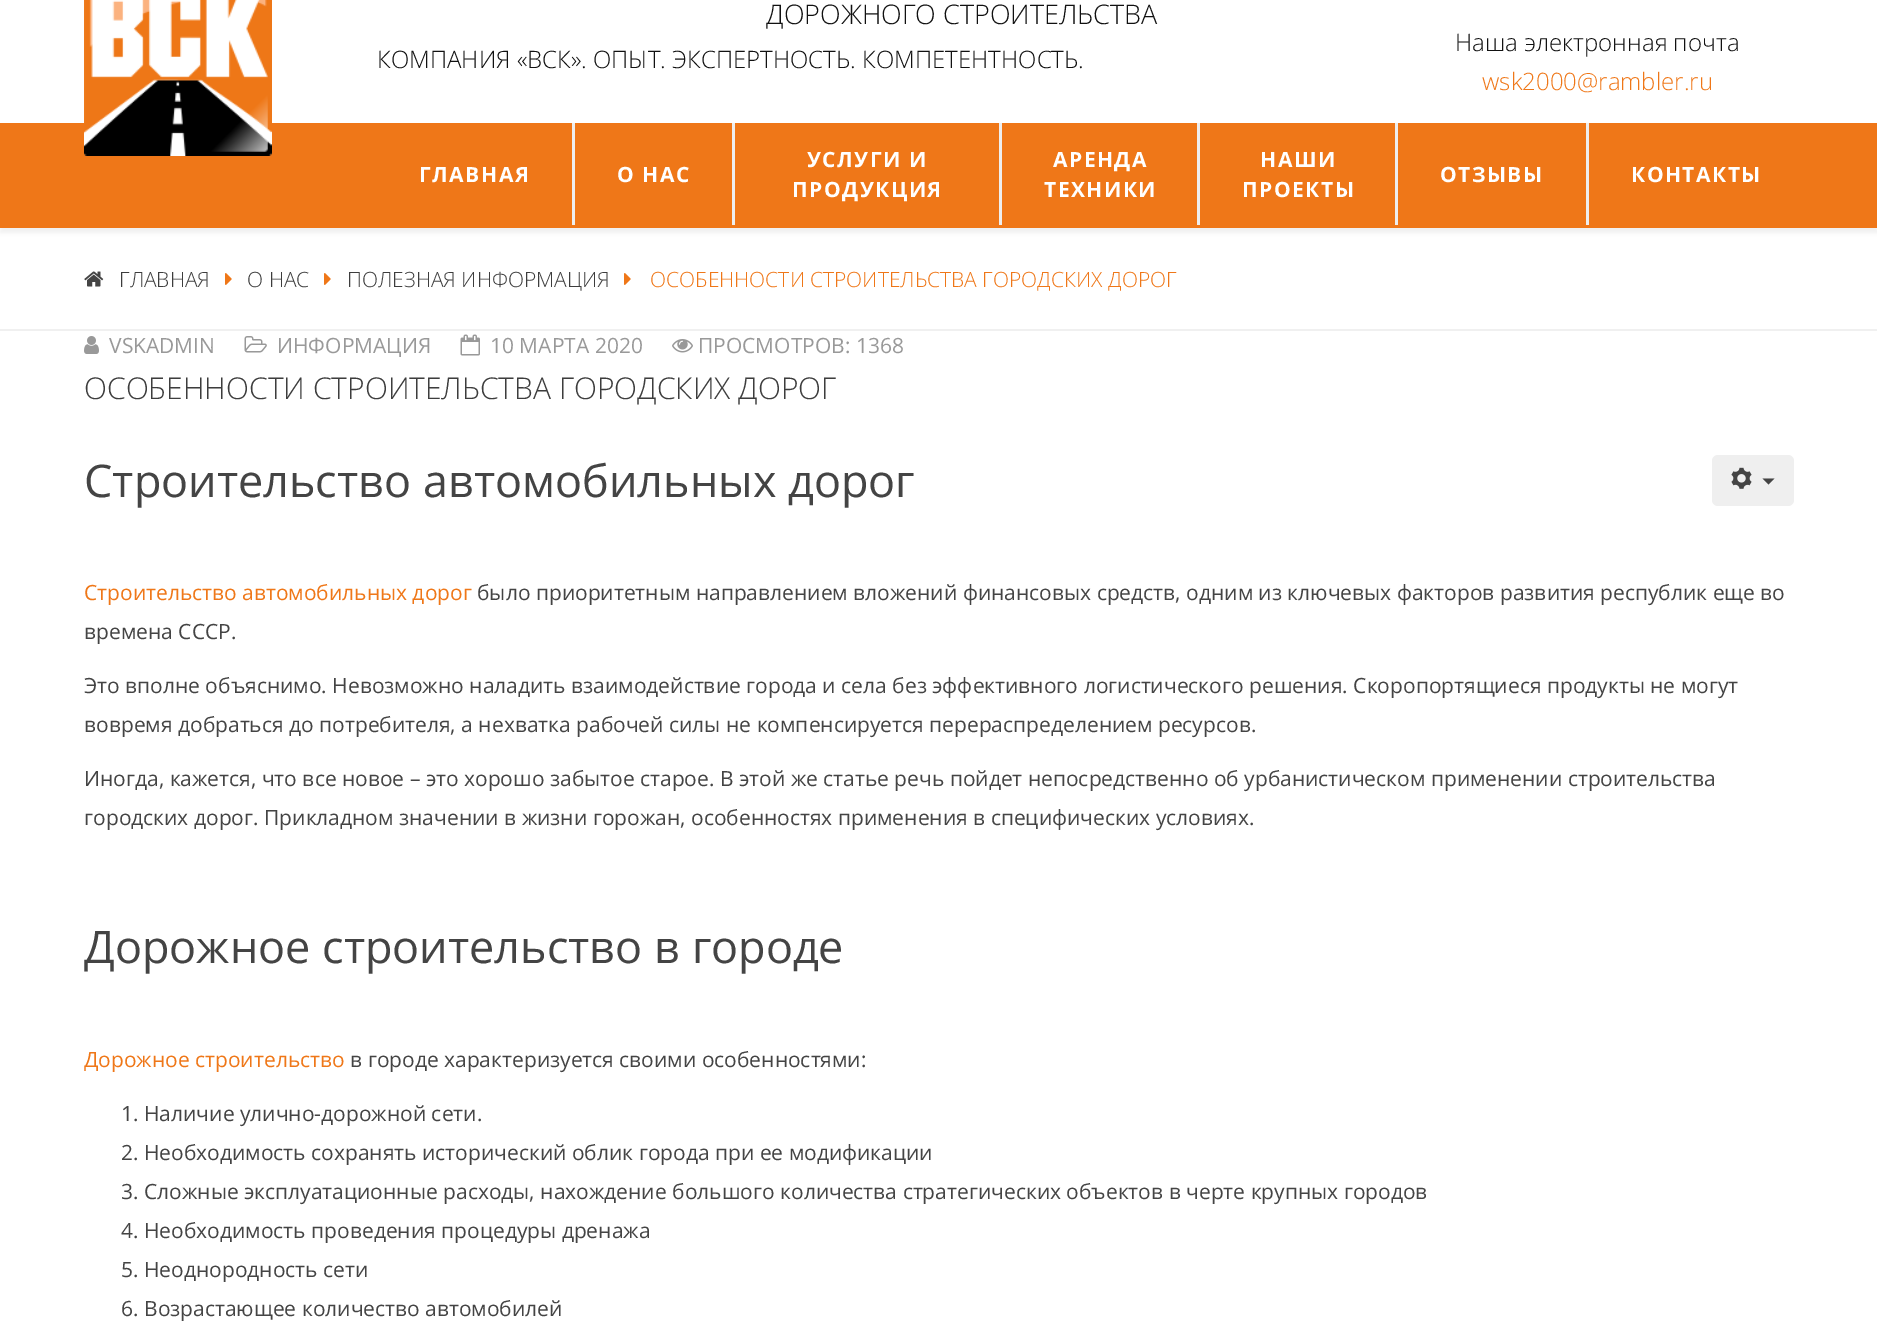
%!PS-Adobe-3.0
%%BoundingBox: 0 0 1877 1338
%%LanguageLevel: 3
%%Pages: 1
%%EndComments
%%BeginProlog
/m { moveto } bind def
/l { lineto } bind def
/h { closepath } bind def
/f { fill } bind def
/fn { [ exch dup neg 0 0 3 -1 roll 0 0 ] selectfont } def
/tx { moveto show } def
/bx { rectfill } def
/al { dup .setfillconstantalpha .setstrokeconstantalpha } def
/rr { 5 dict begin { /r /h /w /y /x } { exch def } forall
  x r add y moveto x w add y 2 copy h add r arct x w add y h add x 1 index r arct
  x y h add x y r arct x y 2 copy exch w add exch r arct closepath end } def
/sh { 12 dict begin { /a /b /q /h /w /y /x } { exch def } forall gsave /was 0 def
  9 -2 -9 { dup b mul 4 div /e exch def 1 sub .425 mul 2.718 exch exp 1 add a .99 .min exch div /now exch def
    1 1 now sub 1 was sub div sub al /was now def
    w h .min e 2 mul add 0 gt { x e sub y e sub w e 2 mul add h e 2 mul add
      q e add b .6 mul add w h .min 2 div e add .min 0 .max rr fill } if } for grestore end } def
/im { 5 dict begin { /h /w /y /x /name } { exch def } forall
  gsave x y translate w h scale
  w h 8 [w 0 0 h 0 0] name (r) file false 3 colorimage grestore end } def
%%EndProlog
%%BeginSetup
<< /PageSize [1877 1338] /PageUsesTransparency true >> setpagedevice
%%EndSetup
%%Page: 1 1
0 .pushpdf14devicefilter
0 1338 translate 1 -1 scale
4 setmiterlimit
1 setgray
0 0 1877 1338 bx
0 setgray
0 128 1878 105 0 2 0.05 sh
0.937 0.467 0.094 setrgbcolor
0 123 1877 105 bx
(image0.raw) 84 0 188 156 im
/OpenSans-Light 27 fn
0.067 setgray
(ДОРОЖНОГО СТРОИТЕЛЬСТВА) 766 24 tx
/OpenSans-Light 24 fn
(КОМПАНИЯ «ВСК». ОПЫТ. ЭКСПЕРТНОСТЬ. КОМПЕТЕНТНОСТЬ.) 377 68 tx
(Наша электронная почта) 1455 51 tx
0.937 0.467 0.094 setrgbcolor
(wsk2000@rambler.ru) 1482 90 tx
0.933 setgray
572 123 3 102 bx
/OpenSans-Bold 21 fn
1 setgray
419 182 m 1.5 0 (ГЛАВНАЯ) ashow
0.933 setgray
732 123 3 102 bx
1 setgray
617 182 m 1.5 0 (О НАС) ashow
0.933 setgray
999 123 3 102 bx
1 setgray
807 167 m 1.5 0 (УСЛУГИ И) ashow
792 197 m 1.5 0 (ПРОДУКЦИЯ) ashow
0.933 setgray
1197 123 3 102 bx
1 setgray
1053 167 m 1.5 0 (АРЕНДА) ashow
1044 197 m 1.5 0 (ТЕХНИКИ) ashow
0.933 setgray
1395 123 3 102 bx
1 setgray
1260 167 m 1.5 0 (НАШИ) ashow
1242 197 m 1.5 0 (ПРОЕКТЫ) ashow
0.933 setgray
1586 123 3 102 bx
1 setgray
1440 182 m 1.5 0 (ОТЗЫВЫ) ashow
1631 182 m 1.5 0 (КОНТАКТЫ) ashow
0.941 setgray
0 329 1877 2 bx
(image1.raw) 84 271 20 16 im
/OpenSans-Light 21 fn
0.239 setgray
(ГЛАВНАЯ) 119 287 tx
(image2.raw) 225 273 7 12 im
(О НАС) 247 287 tx
(image2.raw) 324 273 7 12 im
(ПОЛЕЗНАЯ ИНФОРМАЦИЯ) 347 287 tx
(image2.raw) 624 273 7 12 im
0.937 0.467 0.094 setrgbcolor
(ОСОБЕННОСТИ СТРОИТЕЛЬСТВА ГОРОДСКИХ ДОРОГ) 650 287 tx
(image3.raw) 84 336 15 18 im
/OpenSans-Regular 21 fn
0.6 setgray
(VSKADMIN) 109 353 tx
(image4.raw) 244 336 23 17 im
(ИНФОРМАЦИЯ) 277 353 tx
(image5.raw) 460 334 20 22 im
(10 МАРТА 2020) 490 353 tx
(image6.raw) 672 339 21 14 im
(ПРОСМОТРОВ: 1368) 698 353 tx
/OpenSans-Light 30 fn
0.239 setgray
(ОСОБЕННОСТИ СТРОИТЕЛЬСТВА ГОРОДСКИХ ДОРОГ) 84 399 tx
0.937 setgray
1712 455 82 51 6 rr f
(image7.raw) 1731 467 21 22 im
0.267 setgray
1762.5 478.5 m 1774.5 478.5 l 1768.5 484.5 l h f
/OpenSans-Regular 45 fn
(Строительство автомобильных дорог) 84 497 tx
/OpenSans-Regular 21 fn
0.937 0.467 0.094 setrgbcolor
(Строительство автомобильных дорог) 84 600 tx
0.267 setgray
(было приоритетным направлением вложений финансовых средств, одним из ключевых факторов развития республик еще во) 477 600 tx
(времена СССР.) 84 639 tx
(Это вполне объяснимо. Невозможно наладить взаимодействие города и села без эффективного логистического решения. Скоропортящиеся продукты не могут) 84 693 tx
(вовремя добраться до потребителя, а нехватка рабочей силы не компенсируется перераспределением ресурсов.) 84 732 tx
(Иногда, кажется, что все новое – это хорошо забытое старое. В этой же статье речь пойдет непосредственно об урбанистическом применении строительства) 84 786 tx
(городских дорог. Прикладном значении в жизни горожан, особенностях применения в специфических условиях.) 84 825 tx
/OpenSans-Regular 45 fn
(Дорожное строительство в городе) 84 963 tx
/OpenSans-Regular 21 fn
0.937 0.467 0.094 setrgbcolor
(Дорожное строительство) 84 1067 tx
0.267 setgray
(в городе характеризуется своими особенностями:) 350 1067 tx
(1. Наличие улично-дорожной сети.) 121 1121 tx
(2. Необходимость сохранять исторический облик города при ее модификации) 121 1160 tx
(3. Сложные эксплуатационные расходы, нахождение большого количества стратегических объектов в черте крупных городов) 121 1199 tx
(4. Необходимость проведения процедуры дренажа) 121 1238 tx
(5. Неоднородность сети) 121 1277 tx
(6. Возрастающее количество автомобилей) 121 1316 tx
.poppdf14devicefilter showpage
%%EOF
